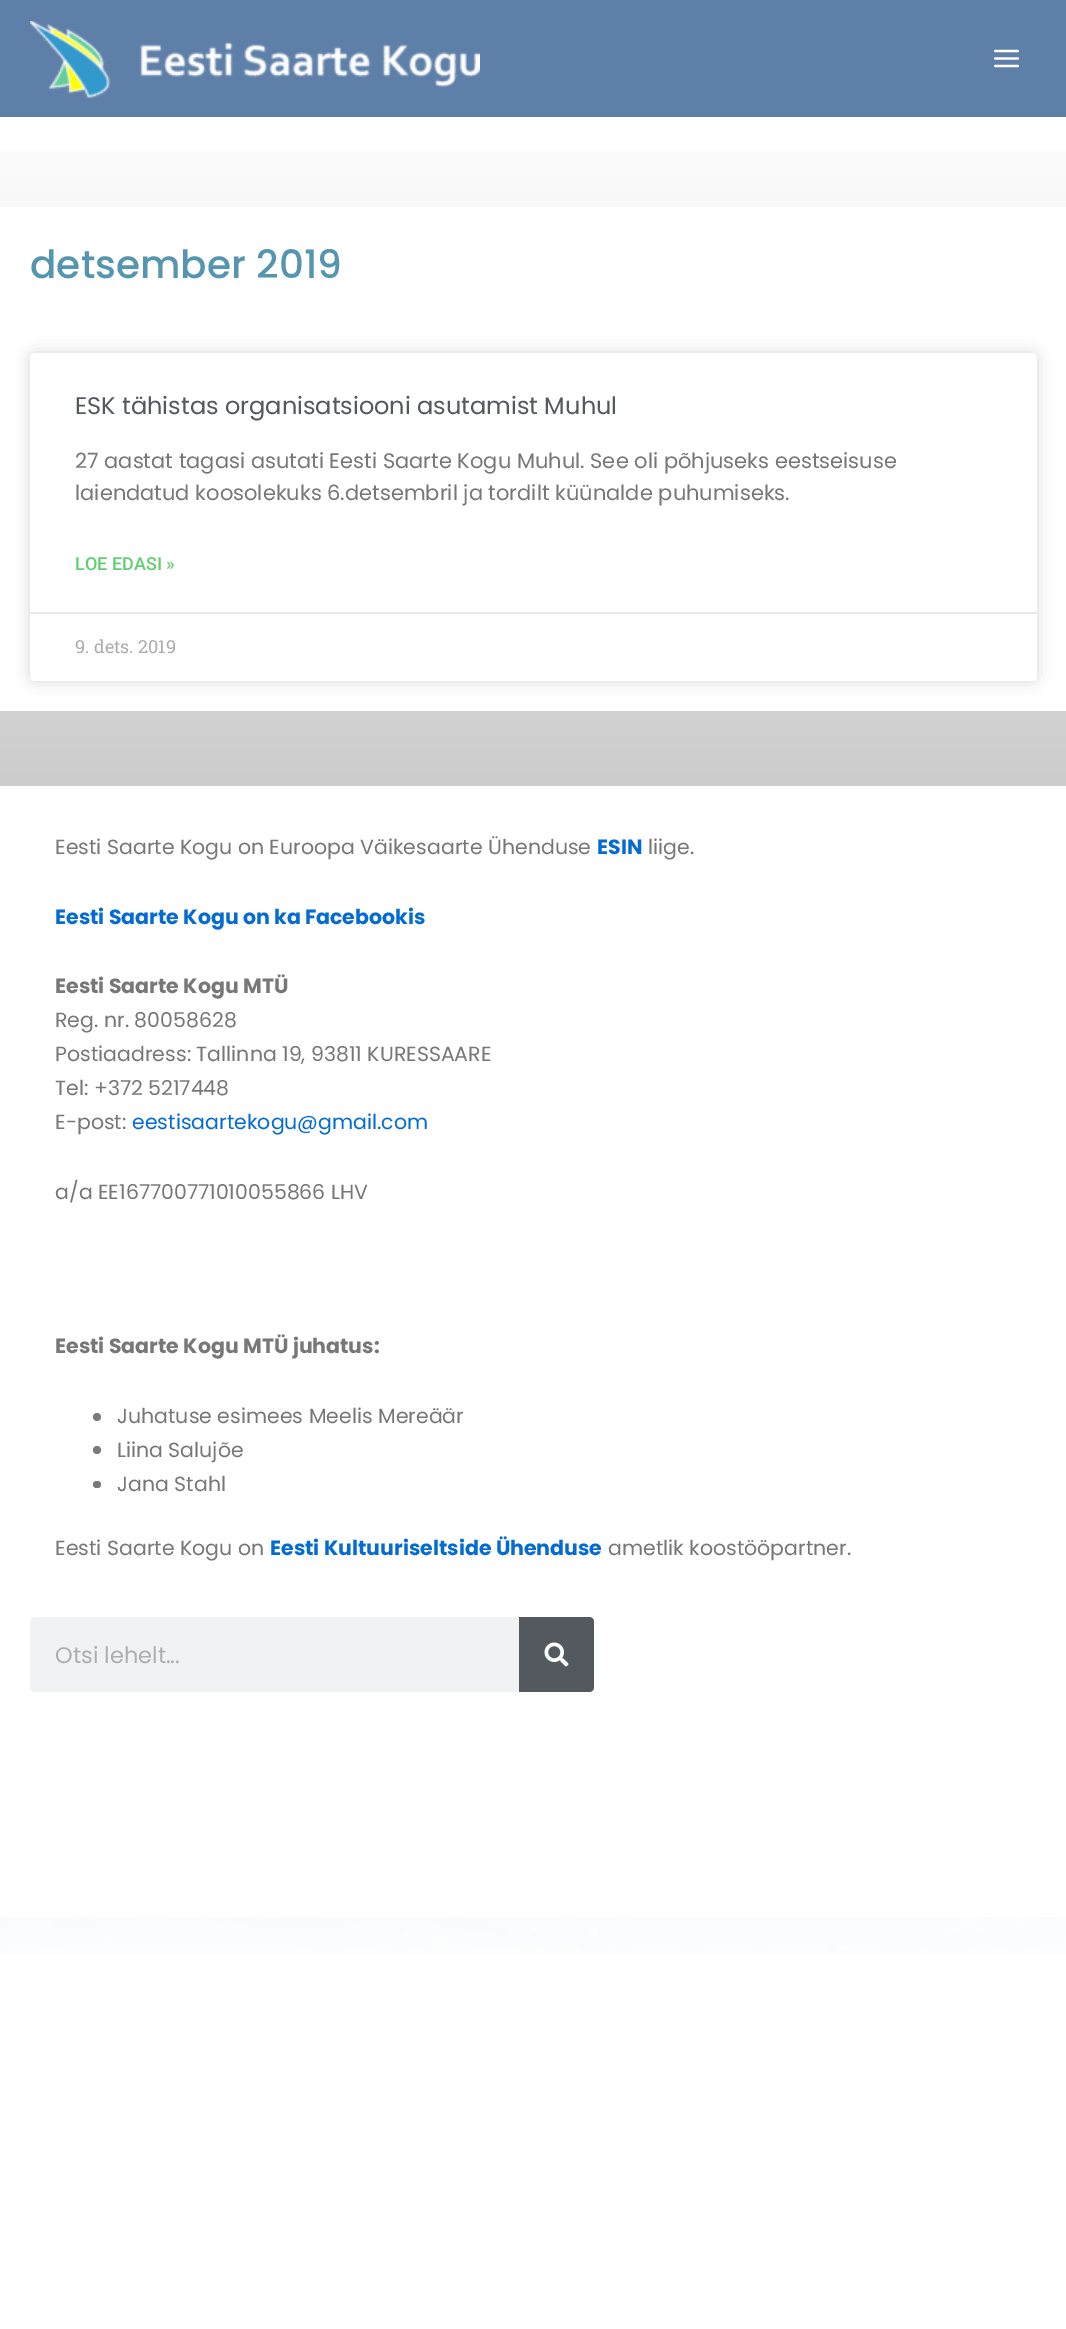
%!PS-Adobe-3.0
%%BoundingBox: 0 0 1066 2329
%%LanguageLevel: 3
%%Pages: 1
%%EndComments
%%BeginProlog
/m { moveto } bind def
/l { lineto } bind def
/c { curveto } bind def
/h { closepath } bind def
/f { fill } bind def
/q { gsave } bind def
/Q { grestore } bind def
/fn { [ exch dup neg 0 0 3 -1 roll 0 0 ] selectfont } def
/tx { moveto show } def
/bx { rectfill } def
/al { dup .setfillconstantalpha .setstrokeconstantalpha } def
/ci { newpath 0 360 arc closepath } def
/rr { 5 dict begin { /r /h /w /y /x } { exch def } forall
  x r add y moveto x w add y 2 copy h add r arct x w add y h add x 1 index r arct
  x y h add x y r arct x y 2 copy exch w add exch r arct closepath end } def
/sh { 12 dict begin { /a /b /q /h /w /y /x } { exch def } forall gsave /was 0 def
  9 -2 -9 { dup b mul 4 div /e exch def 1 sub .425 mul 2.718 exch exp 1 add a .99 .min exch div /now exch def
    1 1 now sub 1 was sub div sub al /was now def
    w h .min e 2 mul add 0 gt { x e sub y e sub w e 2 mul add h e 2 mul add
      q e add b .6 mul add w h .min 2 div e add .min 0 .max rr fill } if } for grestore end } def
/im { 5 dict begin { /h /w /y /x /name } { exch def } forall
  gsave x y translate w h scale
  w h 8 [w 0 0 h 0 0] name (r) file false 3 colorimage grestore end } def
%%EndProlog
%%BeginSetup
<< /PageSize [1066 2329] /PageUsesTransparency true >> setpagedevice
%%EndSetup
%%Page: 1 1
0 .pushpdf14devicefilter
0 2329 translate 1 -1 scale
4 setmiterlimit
1 setgray
0 0 1066 2329 bx
(image0.raw) 0 1917 1066 37 im
0.369 0.498 0.659 setrgbcolor
0 0 1066 117 bx
(image1.raw) 30 21 450 77 im
(image2.raw) 994 49 25 19 im
q 0 150 m 1066 150 l 1066 786 l 0 786 l h clip newpath
<< /ShadingType 2 /ColorSpace /DeviceRGB /Coords [533 117 533 786] /Extend [true true] /Function << /FunctionType 2 /Domain [0 1] /C0 [1 1 1] /C1 [0.8 0.8 0.8] /N 1 >> >> shfill Q
1 setgray
0 207 1066 504 bx
/Poppins-Medium 39 fn
0.337 0.584 0.686 setrgbcolor
(detsember 2019) 30 278 tx
0 setgray
30 353 1007 328 5 7.5 0.15 sh
1 setgray
30 353 1007 328 5 rr f
/Poppins-Regular 24 fn
0.329 0.349 0.373 setrgbcolor
(ESK tähistas organisatsiooni asutamist Muhul) 75 414 tx
/Poppins-Regular 21 fn
0.467 setgray
(27 aastat tagasi asutati Eesti Saarte Kogu Muhul. See oli põhjuseks eestseisuse) 75 468 tx
(laiendatud koosolekuks 6.detsembril ja tordilt küünalde puhumiseks.) 75 500 tx
/Roboto-Medium 18 fn
0.38 0.808 0.439 setrgbcolor
(LOE EDASI ») 75 570 tx
0.918 setgray
30 612 1007 2 bx
/RobotoSlab-Regular 18 fn
0.678 setgray
(9. dets. 2019) 75 653 tx
/Poppins-Regular 20.5 fn
0.467 setgray
(Eesti Saarte Kogu on Euroopa Väikesaarte Ühenduse) 55 854 tx
/Poppins-Bold 20.5 fn
0.016 0.42 0.824 setrgbcolor
(ESIN) 597 854 tx
/Poppins-Regular 20.5 fn
0.467 setgray
(liige.) 648 854 tx
/Poppins-Bold 20.5 fn
0.016 0.42 0.824 setrgbcolor
(Eesti Saarte Kogu on ka Facebookis) 55 924 tx
0.467 setgray
(Eesti Saarte Kogu MTÜ) 55 993 tx
/Poppins-Regular 20.5 fn
(Reg. nr. 80058628) 55 1027 tx
(Postiaadress: Tallinna 19, 93811 KURESSAARE) 55 1061 tx
(Tel: +372 5217448) 55 1095 tx
(E-post:) 55 1129 tx
0.016 0.42 0.824 setrgbcolor
(eestisaartekogu@gmail.com) 132 1129 tx
0.467 setgray
(a/a EE167700771010055866 LHV) 55 1199 tx
/Poppins-Bold 20.5 fn
(Eesti Saarte Kogu MTÜ juhatus:) 55 1353 tx
0.478 setgray
97 1417 4 ci f
/Poppins-Regular 20.5 fn
0.467 setgray
(Juhatuse esimees Meelis Mereäär) 117 1423 tx
0.478 setgray
97 1450 4 ci f
0.467 setgray
(Liina Salujõe) 117 1457 tx
0.478 setgray
93 1481 8 7 3.5 rr f
0.467 setgray
(Jana Stahl) 117 1491 tx
(Eesti Saarte Kogu on) 55 1555 tx
/Poppins-Bold 20.5 fn
0.016 0.42 0.824 setrgbcolor
(Eesti Kultuuriseltside Ühenduse) 270 1555 tx
/Poppins-Regular 20.5 fn
0.467 setgray
(ametlik koostööpartner.) 608 1555 tx
0.945 0.949 0.953 setrgbcolor
30 1617 564 75 5 rr f
/Poppins-Regular 22.5 fn
0.678 setgray
(Otsi lehelt...) 55 1663 tx
0.329 0.349 0.373 setrgbcolor
519 1617 m 589 1617 l 592 1617 594 1619 594 1622 c 594 1687 l 594 1690 592 1692 589 1692 c 519 1692 l h f
(image3.raw) 544 1642 25 25 im
.poppdf14devicefilter showpage
%%EOF
